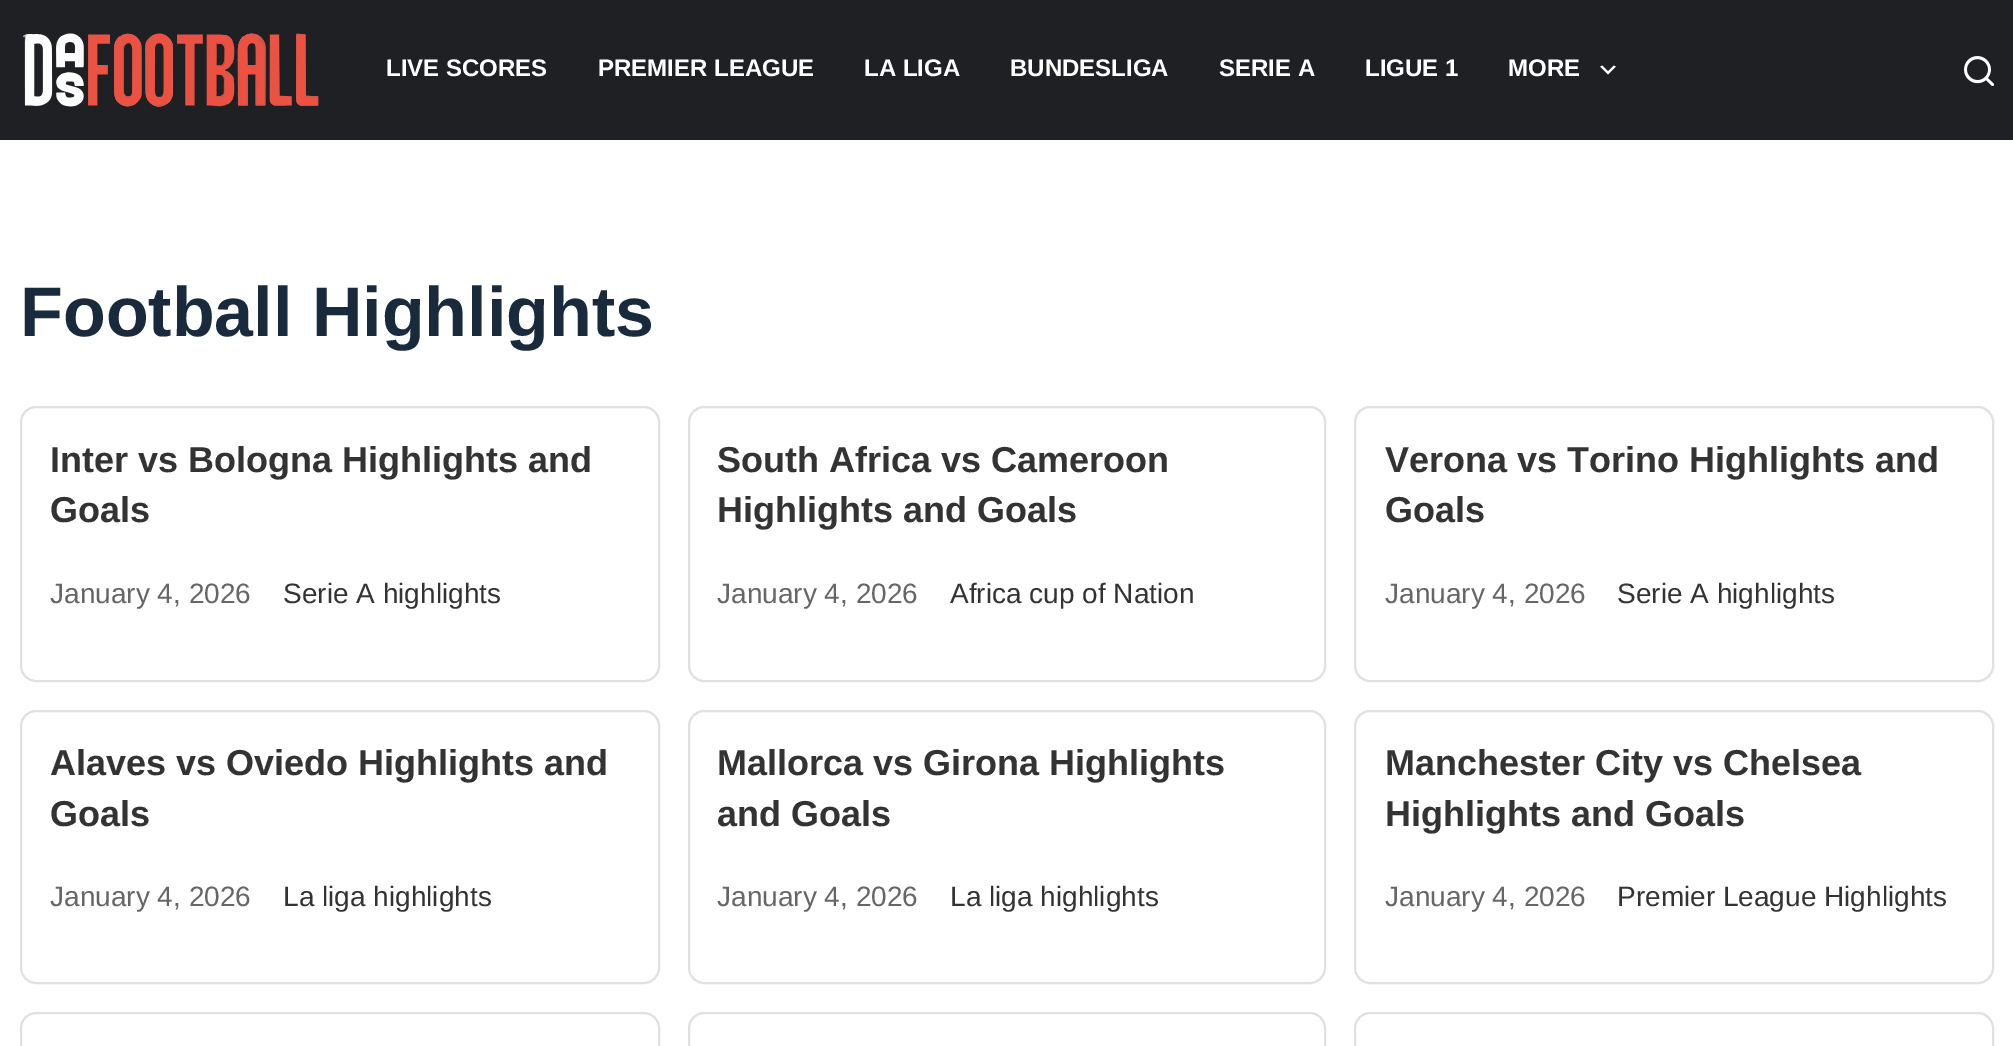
%!PS-Adobe-3.0
%%BoundingBox: 0 0 2013 1046
%%LanguageLevel: 3
%%Pages: 1
%%EndComments
%%BeginProlog
/S { stroke } bind def
/w { setlinewidth } bind def
/fn { [ exch dup neg 0 0 3 -1 roll 0 0 ] selectfont } def
/tx { moveto show } def
/bx { rectfill } def
/rr { 5 dict begin { /r /h /w /y /x } { exch def } forall
  x r add y moveto x w add y 2 copy h add r arct x w add y h add x 1 index r arct
  x y h add x y r arct x y 2 copy exch w add exch r arct closepath end } def
/im { 5 dict begin { /h /w /y /x /name } { exch def } forall
  gsave x y translate w h scale
  w h 8 [w 0 0 h 0 0] name (r) file false 3 colorimage grestore end } def
%%EndProlog
%%BeginSetup
<< /PageSize [2013 1046] >> setpagedevice
%%EndSetup
%%Page: 1 1
0 1046 translate 1 -1 scale
4 setmiterlimit
1 setgray
0 0 2013 1046 bx
0.118 0.125 0.141 setrgbcolor
0 0 2013 140 bx
(image0.raw) 23 33 296 74 im
/LiberationSans-Bold 24 fn
1 setgray
(LIVE SCORES) 386 76 tx
(PREMIER LEAGUE) 598 76 tx
(LA LIGA) 864 76 tx
(BUNDESLIGA) 1010 76 tx
(SERIE A) 1219 76 tx
(LIGUE 1) 1365 76 tx
(MORE) 1508 76 tx
(image1.raw) 1600 65 16 10 im
(image2.raw) 1964 56 30 30 im
/LiberationSans-Bold 70 fn
0.098 0.165 0.239 setrgbcolor
(Football Highlights) 20 336 tx
0.882 setgray
2 w
21 407 638 274 15 rr S
/LiberationSans-Bold 36 fn
0.2 setgray
(Inter vs Bologna Highlights and) 50 472 tx
(Goals) 50 522 tx
/LiberationSans-Regular 28 fn
0.4 setgray
(January 4, 2026) 50 603 tx
0.2 setgray
(Serie A highlights) 283 603 tx
0.882 setgray
689 407 636 274 15 rr S
/LiberationSans-Bold 36 fn
0.2 setgray
(South Africa vs Cameroon) 717 472 tx
(Highlights and Goals) 717 522 tx
/LiberationSans-Regular 28 fn
0.4 setgray
(January 4, 2026) 717 603 tx
0.2 setgray
(Africa cup of Nation) 950 603 tx
0.882 setgray
1355 407 638 274 15 rr S
/LiberationSans-Bold 36 fn
0.2 setgray
(Verona vs Torino Highlights and) 1385 472 tx
(Goals) 1385 522 tx
/LiberationSans-Regular 28 fn
0.4 setgray
(January 4, 2026) 1385 603 tx
0.2 setgray
(Serie A highlights) 1617 603 tx
0.882 setgray
21 711 638 272 15 rr S
/LiberationSans-Bold 36 fn
0.2 setgray
(Alaves vs Oviedo Highlights and) 50 775 tx
(Goals) 50 826 tx
/LiberationSans-Regular 28 fn
0.4 setgray
(January 4, 2026) 50 906 tx
0.2 setgray
(La liga highlights) 283 906 tx
0.882 setgray
689 711 636 272 15 rr S
/LiberationSans-Bold 36 fn
0.2 setgray
(Mallorca vs Girona Highlights) 717 775 tx
(and Goals) 717 826 tx
/LiberationSans-Regular 28 fn
0.4 setgray
(January 4, 2026) 717 906 tx
0.2 setgray
(La liga highlights) 950 906 tx
0.882 setgray
1355 711 638 272 15 rr S
/LiberationSans-Bold 36 fn
0.2 setgray
(Manchester City vs Chelsea) 1385 775 tx
(Highlights and Goals) 1385 826 tx
/LiberationSans-Regular 28 fn
0.4 setgray
(January 4, 2026) 1385 906 tx
0.2 setgray
(Premier League Highlights) 1617 906 tx
0.882 setgray
21 1013 638 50 15 rr S
689 1013 636 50 15 rr S
1355 1013 638 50 15 rr S
showpage
%%EOF
